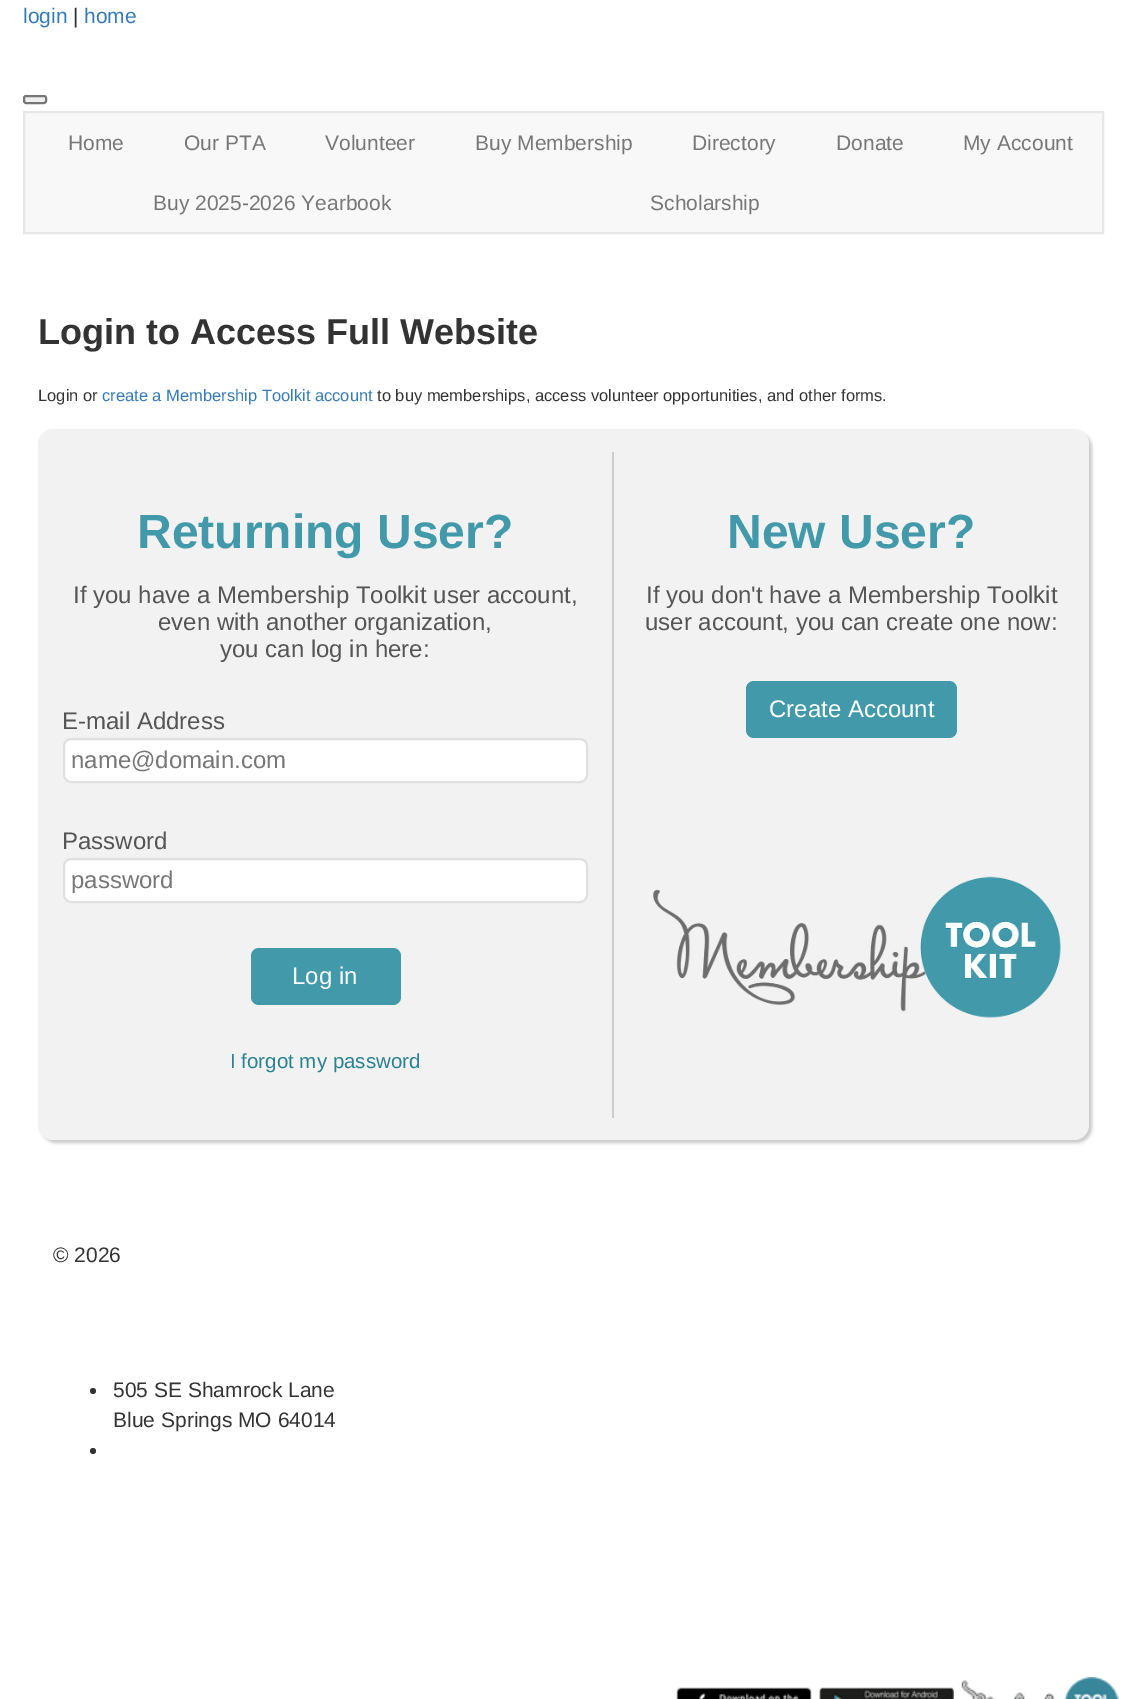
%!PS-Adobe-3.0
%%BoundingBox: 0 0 1126 1699
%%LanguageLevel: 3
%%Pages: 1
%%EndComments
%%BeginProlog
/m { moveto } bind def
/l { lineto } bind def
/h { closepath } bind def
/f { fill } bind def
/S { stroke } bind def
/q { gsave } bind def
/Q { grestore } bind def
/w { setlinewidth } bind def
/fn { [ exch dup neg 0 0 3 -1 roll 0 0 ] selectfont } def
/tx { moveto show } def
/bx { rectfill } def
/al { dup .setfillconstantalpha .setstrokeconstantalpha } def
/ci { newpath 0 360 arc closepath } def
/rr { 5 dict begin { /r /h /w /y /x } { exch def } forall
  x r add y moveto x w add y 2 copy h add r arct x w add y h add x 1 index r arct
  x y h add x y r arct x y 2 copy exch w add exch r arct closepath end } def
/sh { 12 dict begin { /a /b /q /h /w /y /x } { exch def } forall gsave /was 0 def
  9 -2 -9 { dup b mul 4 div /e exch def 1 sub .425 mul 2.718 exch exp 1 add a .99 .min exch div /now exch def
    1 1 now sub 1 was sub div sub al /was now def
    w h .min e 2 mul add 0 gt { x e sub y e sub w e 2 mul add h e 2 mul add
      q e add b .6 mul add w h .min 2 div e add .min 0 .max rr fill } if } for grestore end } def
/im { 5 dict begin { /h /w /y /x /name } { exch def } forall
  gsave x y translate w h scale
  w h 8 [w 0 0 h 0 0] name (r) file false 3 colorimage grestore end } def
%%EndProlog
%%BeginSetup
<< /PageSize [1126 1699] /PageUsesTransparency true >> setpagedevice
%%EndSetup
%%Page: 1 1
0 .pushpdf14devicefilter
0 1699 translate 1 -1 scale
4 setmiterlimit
1 setgray
0 0 1126 1699 bx
/LiberationSans-Regular 21 fn
0.2 0.478 0.718 setrgbcolor
(login) 23 23 tx
0.2 setgray
(|) 73 23 tx
0.2 0.478 0.718 setrgbcolor
(home) 84 23 tx
0.937 setgray
24 96 22 7 2 rr q f Q
0.463 setgray
2 w
S
0.973 setgray
24 112 m 1103 112 l 1103 233 l 24 233 l h q f Q
0.906 setgray
S
0.467 setgray
(Home) 68 150 tx
(Our PTA) 184 150 tx
(Volunteer) 325 150 tx
(Buy Membership) 475 150 tx
(Directory) 692 150 tx
(Donate) 836 150 tx
(My Account) 963 150 tx
(Buy 2025-2026 Yearbook) 153 210 tx
(Scholarship) 650 210 tx
/LiberationSans-Bold 36 fn
0.2 setgray
(Login to Access Full Website) 38 344 tx
/LiberationSans-Regular 16.5 fn
(Login or) 38 401 tx
0.2 0.478 0.718 setrgbcolor
(create a Membership Toolkit account) 102 401 tx
0.2 setgray
(to buy memberships, access volunteer opportunities, and other forms.) 377 401 tx
0 setgray
41 432 1051 711 15 1.5 0.2 sh
0.949 setgray
38 429 1051 711 15 rr f
0.8 setgray
612 452 2 666 bx
/LiberationSans-Bold 48 fn
0.259 0.6 0.667 setrgbcolor
(Returning User?) 137 548 tx
/LiberationSans-Regular 24 fn
0.333 setgray
(If you have a Membership Toolkit user account,) 73 603 tx
(even with another organization,) 158 630 tx
(you can log in here:) 220 657 tx
(E-mail Address) 62 729 tx
1 setgray
64 739 523 43 7 rr q f Q
0.878 setgray
S
0.467 setgray
(name@domain.com) 71 768 tx
0.333 setgray
(Password) 62 849 tx
1 setgray
64 859 523 43 7 rr q f Q
0.878 setgray
S
0.467 setgray
(password) 71 888 tx
0.259 0.6 0.667 setrgbcolor
251 948 150 57 8 rr f
1 setgray
(Log in) 292 984 tx
/LiberationSans-Regular 20.5 fn
0.165 0.506 0.573 setrgbcolor
(I forgot my password) 230 1068 tx
/LiberationSans-Bold 48 fn
0.259 0.6 0.667 setrgbcolor
(New User?) 727 548 tx
/LiberationSans-Regular 24 fn
0.333 setgray
(If you don't have a Membership Toolkit) 646 603 tx
(user account, you can create one now:) 645 630 tx
0.259 0.6 0.667 setrgbcolor
746 681 211 57 8 rr f
1 setgray
(Create Account) 769 717 tx
(image0.raw) 653 876 408 142 im
/LiberationSans-Regular 21 fn
0.2 setgray
(© 2026) 53 1262 tx
93 1391 3 ci f
(505 SE Shamrock Lane) 113 1397 tx
(Blue Springs MO 64014) 113 1427 tx
93 1451 3 ci f
(image1.raw) 676 1687 136 12 im
(image2.raw) 819 1687 135 12 im
(image3.raw) 961 1677 158 22 im
.poppdf14devicefilter showpage
%%EOF
